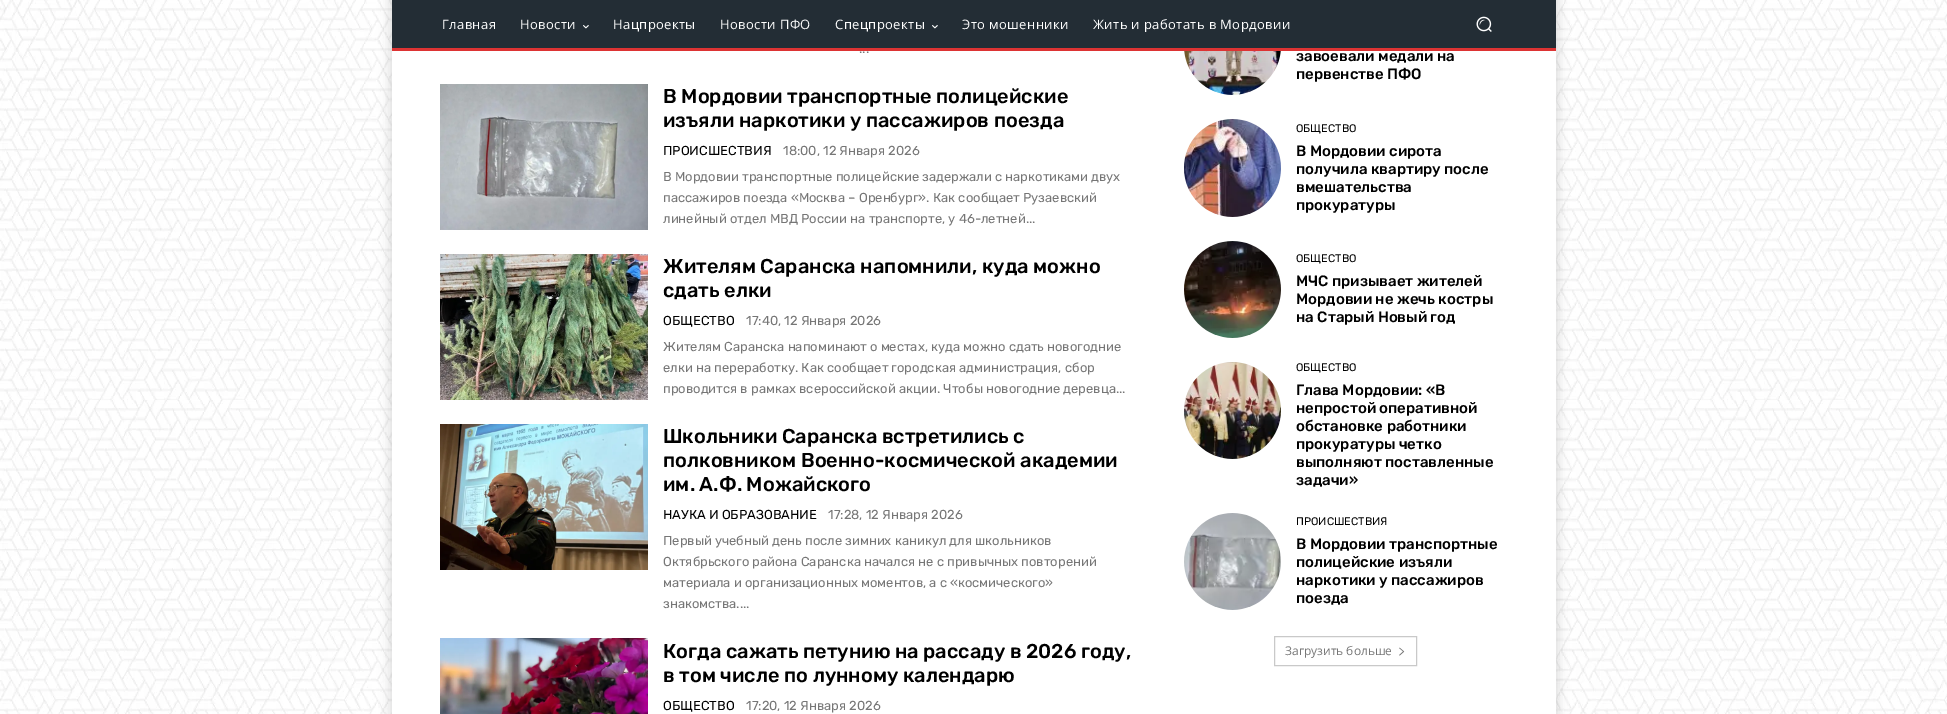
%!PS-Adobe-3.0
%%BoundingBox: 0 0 1947 714
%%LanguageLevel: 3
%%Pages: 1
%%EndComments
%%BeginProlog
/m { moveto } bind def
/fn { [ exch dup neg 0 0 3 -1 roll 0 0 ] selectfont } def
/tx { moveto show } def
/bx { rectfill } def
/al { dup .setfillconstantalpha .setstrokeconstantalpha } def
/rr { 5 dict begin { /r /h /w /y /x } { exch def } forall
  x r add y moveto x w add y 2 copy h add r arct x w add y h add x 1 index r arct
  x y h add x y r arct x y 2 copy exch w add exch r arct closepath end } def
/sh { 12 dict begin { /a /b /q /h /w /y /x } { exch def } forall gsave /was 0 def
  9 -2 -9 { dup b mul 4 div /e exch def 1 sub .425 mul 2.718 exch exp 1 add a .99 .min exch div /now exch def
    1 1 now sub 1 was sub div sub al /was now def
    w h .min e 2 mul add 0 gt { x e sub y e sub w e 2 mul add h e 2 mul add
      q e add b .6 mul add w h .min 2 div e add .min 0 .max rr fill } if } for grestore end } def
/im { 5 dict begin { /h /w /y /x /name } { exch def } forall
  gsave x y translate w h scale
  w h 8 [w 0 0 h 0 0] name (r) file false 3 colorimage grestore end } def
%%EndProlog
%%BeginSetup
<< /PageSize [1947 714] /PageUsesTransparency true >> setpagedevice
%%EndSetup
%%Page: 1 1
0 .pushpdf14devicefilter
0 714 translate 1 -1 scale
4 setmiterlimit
1 setgray
0 0 1947 714 bx
(image0.raw) 0 0 1947 714 im
0 setgray
389 -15 1170 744 0 5 0.12 sh
0.137 0.176 0.208 setrgbcolor
392 0 1164 48 bx
/OpenSans-Regular 13 fn
1 setgray
442 29 m 0.4 0 (Главная) ashow
520 29 m 0.4 0 (Новости) ashow
(image1.raw) 583 25 6 4 im
613 29 m 0.4 0 (Нацпроекты) ashow
720 29 m 0.4 0 (Новости ПФО) ashow
835 29 m 0.4 0 (Спецпроекты) ashow
(image1.raw) 932 25 6 4 im
962 29 m 0.4 0 (Это мошенники) ashow
1093 29 m 0.4 0 (Жить и работать в Мордовии) ashow
(image2.raw) 1476 16 16 16 im
0.867 0.2 0.2 setrgbcolor
392 48 1164 3 bx
1 setgray
392 51 1164 663 bx
/Rubik-Regular 13 fn
0.463 setgray
(...) 859 53 tx
(image3.raw) 440 84 208 146 im
/Rubik-Medium 20 fn
0 setgray
(В Мордовии транспортные полицейские) 663 103 tx
(изъяли наркотики у пассажиров поезда) 663 127 tx
/Rubik-Regular 13 fn
(ПРОИСШЕСТВИЯ) 663 155 tx
0.463 setgray
(18:00, 12 Января 2026) 783 155 tx
(В Мордовии транспортные полицейские задержали с наркотиками двух) 663 181 tx
(пассажиров поезда «Москва – Оренбург». Как сообщает Рузаевский) 663 202 tx
(линейный отдел МВД России на транспорте, у 46-летней...) 663 223 tx
(image4.raw) 440 254 208 146 im
/Rubik-Medium 20 fn
0 setgray
(Жителям Саранска напомнили, куда можно) 663 273 tx
(сдать елки) 663 297 tx
/Rubik-Regular 13 fn
(ОБЩЕСТВО) 663 325 tx
0.463 setgray
(17:40, 12 Января 2026) 746 325 tx
(Жителям Саранска напоминают о местах, куда можно сдать новогодние) 663 351 tx
(елки на переработку. Как сообщает городская администрация, сбор) 663 372 tx
(проводится в рамках всероссийской акции. Чтобы новогодние деревца...) 663 393 tx
(image5.raw) 440 424 208 146 im
/Rubik-Medium 20 fn
0 setgray
(Школьники Саранска встретились с) 663 443 tx
(полковником Военно-космической академии) 663 467 tx
(им. А.Ф. Можайского) 663 491 tx
/Rubik-Regular 13 fn
(НАУКА И ОБРАЗОВАНИЕ) 663 519 tx
0.463 setgray
(17:28, 12 Января 2026) 828 519 tx
(Первый учебный день после зимних каникул для школьников) 663 545 tx
(Октябрьского района Саранска начался не с привычных повторений) 663 566 tx
(материала и организационных моментов, а с «космического») 663 587 tx
(знакомства....) 663 608 tx
(image6.raw) 440 638 208 76 im
/Rubik-Medium 20 fn
0 setgray
(Когда сажать петунию на рассаду в 2026 году,) 663 658 tx
(в том числе по лунному календарю) 663 682 tx
/Rubik-Regular 13 fn
(ОБЩЕСТВО) 663 710 tx
0.463 setgray
(17:20, 12 Января 2026) 746 710 tx
(image7.raw) 1184 51 97 44 im
/Rubik-Medium 15 fn
0 setgray
(завоевали медали на) 1296 61 tx
(первенстве ПФО) 1296 79 tx
(image8.raw) 1184 119 97 98 im
/Rubik-Regular 11 fn
(ОБЩЕСТВО) 1296 132 tx
/Rubik-Medium 15 fn
(В Мордовии сирота) 1296 156 tx
(получила квартиру после) 1296 174 tx
(вмешательства) 1296 192 tx
(прокуратуры) 1296 210 tx
(image9.raw) 1184 241 97 97 im
/Rubik-Regular 11 fn
(ОБЩЕСТВО) 1296 262 tx
/Rubik-Medium 15 fn
(МЧС призывает жителей) 1296 286 tx
(Мордовии не жечь костры) 1296 304 tx
(на Старый Новый год) 1296 322 tx
(image10.raw) 1184 362 97 97 im
/Rubik-Regular 11 fn
(ОБЩЕСТВО) 1296 371 tx
/Rubik-Medium 15 fn
(Глава Мордовии: «В) 1296 395 tx
(непростой оперативной) 1296 413 tx
(обстановке работники) 1296 431 tx
(прокуратуры четко) 1296 449 tx
(выполняют поставленные) 1296 467 tx
(задачи») 1296 485 tx
(image11.raw) 1184 513 97 97 im
/Rubik-Regular 11 fn
(ПРОИСШЕСТВИЯ) 1296 525 tx
/Rubik-Medium 15 fn
(В Мордовии транспортные) 1296 549 tx
(полицейские изъяли) 1296 567 tx
(наркотики у пассажиров) 1296 585 tx
(поезда) 1296 603 tx
0.788 setgray
1274.5 636.5 142 29 rectstroke
/OpenSans-Regular 12 fn
0.463 setgray
(Загрузить больше) 1285 655 tx
(image12.raw) 1399 647 6 9 im
.poppdf14devicefilter showpage
%%EOF
